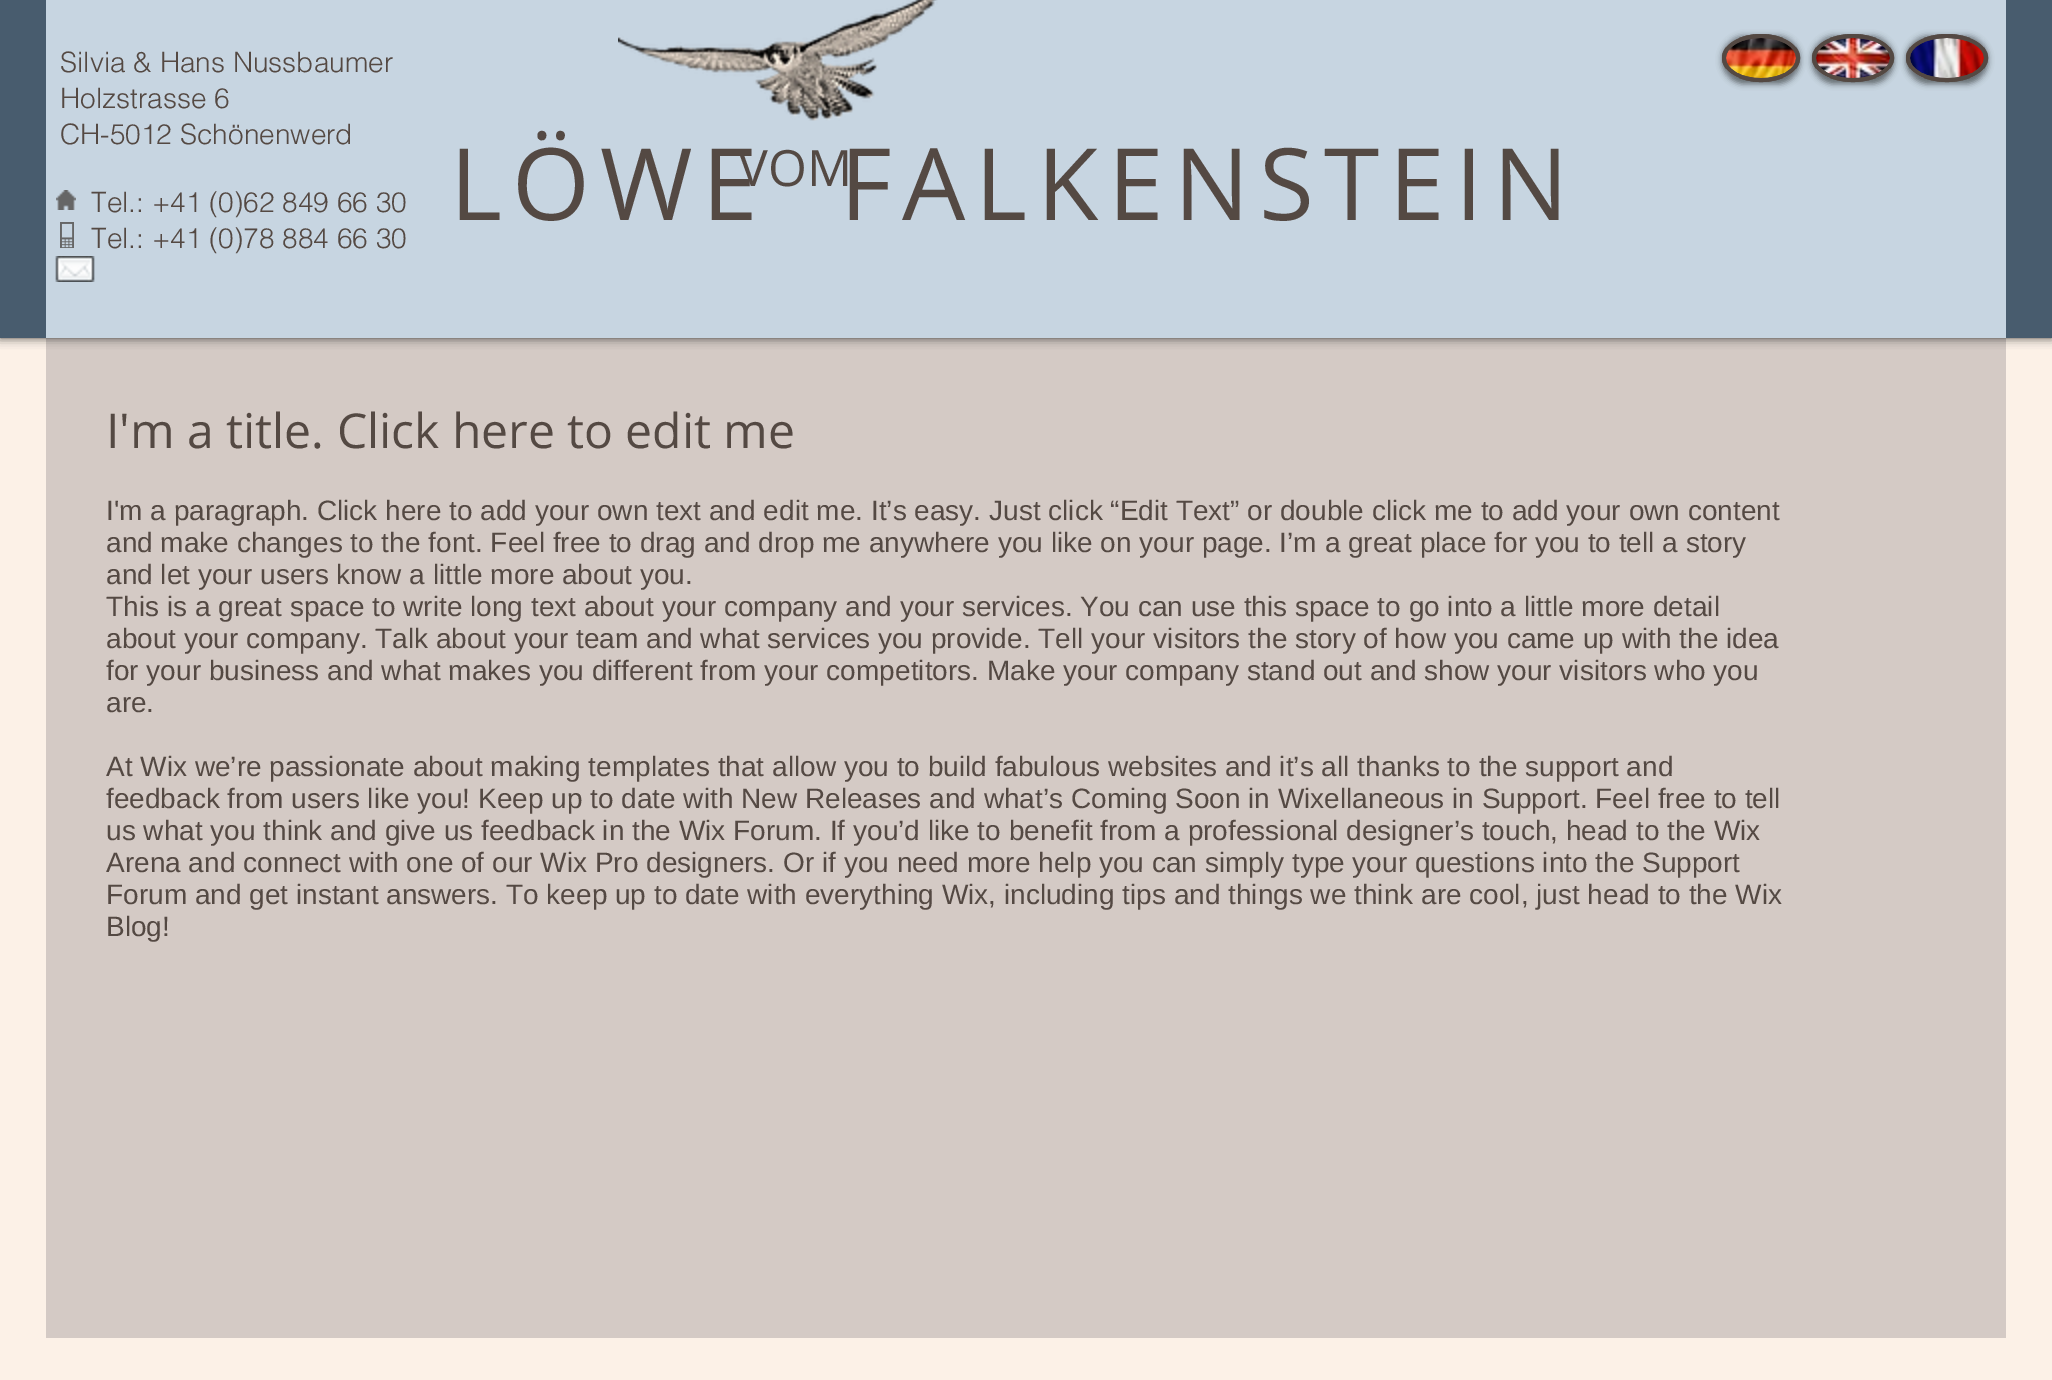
%!PS-Adobe-3.0
%%BoundingBox: 0 0 2052 1380
%%LanguageLevel: 3
%%Pages: 1
%%EndComments
%%BeginProlog
/m { moveto } bind def
/c { curveto } bind def
/h { closepath } bind def
/f { fill } bind def
/S { stroke } bind def
/w { setlinewidth } bind def
/fn { [ exch dup neg 0 0 3 -1 roll 0 0 ] selectfont } def
/tx { moveto show } def
/bx { rectfill } def
/al { dup .setfillconstantalpha .setstrokeconstantalpha } def
/rr { 5 dict begin { /r /h /w /y /x } { exch def } forall
  x r add y moveto x w add y 2 copy h add r arct x w add y h add x 1 index r arct
  x y h add x y r arct x y 2 copy exch w add exch r arct closepath end } def
/sh { 12 dict begin { /a /b /q /h /w /y /x } { exch def } forall gsave /was 0 def
  9 -2 -9 { dup b mul 4 div /e exch def 1 sub .425 mul 2.718 exch exp 1 add a .99 .min exch div /now exch def
    1 1 now sub 1 was sub div sub al /was now def
    w h .min e 2 mul add 0 gt { x e sub y e sub w e 2 mul add h e 2 mul add
      q e add b .6 mul add w h .min 2 div e add .min 0 .max rr fill } if } for grestore end } def
/im { 5 dict begin { /h /w /y /x /name } { exch def } forall
  gsave x y translate w h scale
  w h 8 [w 0 0 h 0 0] name (r) file false 3 colorimage grestore end } def
%%EndProlog
%%BeginSetup
<< /PageSize [2052 1380] /PageUsesTransparency true >> setpagedevice
%%EndSetup
%%Page: 1 1
0 .pushpdf14devicefilter
0 1380 translate 1 -1 scale
4 setmiterlimit
0.988 0.945 0.906 setrgbcolor
0 0 2052 1380 bx
0.831 0.792 0.773 setrgbcolor
46 338 1960 1000 bx
0 setgray
0 0 2052 338 0 5 0.7 sh
0.282 0.361 0.431 setrgbcolor
0 0 2052 338 bx
0.78 0.835 0.882 setrgbcolor
46 0 1960 338 bx
/helvetica-Light 28 fn
0.329 0.286 0.263 setrgbcolor
(Silvia & Hans Nussbaumer) 60 72 tx
(Holzstrasse 6) 60 108 tx
(CH-5012 Schönenwerd) 60 144 tx
(Tel.: +41 \(0\)62 849 66 30) 91 212 tx
(Tel.: +41 \(0\)78 884 66 30) 91 248 tx
(image0.raw) 618 0 320 121 im
0 setgray
1722 36 78 48 24 3 0.5 sh
0.329 0.286 0.263 setrgbcolor
1761 34 m 1782.5 34 1800 44.5 1800 58 c 1800 71.5 1782.5 82 1761 82 c 1739.5 82 1722 71.5 1722 58 c 1722 44.5 1739.5 34 1761 34 c h f
4 w
1761 36 m 1781.5 36 1798 46 1798 58 c 1798 70 1781.5 80 1761 80 c 1740.5 80 1724 70 1724 58 c 1724 46 1740.5 36 1761 36 c h S
(image1.raw) 1726 38 70 40 im
0 setgray
1812 36 82 48 24 3 0.5 sh
0.329 0.286 0.263 setrgbcolor
1853 34 m 1875.5 34 1894 44.5 1894 58 c 1894 71.5 1875.5 82 1853 82 c 1830.5 82 1812 71.5 1812 58 c 1812 44.5 1830.5 34 1853 34 c h f
1853 36 m 1874.5 36 1892 46 1892 58 c 1892 70 1874.5 80 1853 80 c 1831.5 80 1814 70 1814 58 c 1814 46 1831.5 36 1853 36 c h S
(image2.raw) 1816 38 74 40 im
0 setgray
1906 36 82 48 24 3 0.5 sh
0.329 0.286 0.263 setrgbcolor
1947 34 m 1969.5 34 1988 44.5 1988 58 c 1988 71.5 1969.5 82 1947 82 c 1924.5 82 1906 71.5 1906 58 c 1906 44.5 1924.5 34 1947 34 c h f
1947 36 m 1968.5 36 1986 46 1986 58 c 1986 70 1968.5 80 1947 80 c 1925.5 80 1908 70 1908 58 c 1908 46 1925.5 36 1947 36 c h S
(image3.raw) 1910 38 74 40 im
/OpenSans-Regular 100 fn
450 220 m 10 0 (LÖWE  FALKENSTEIN) ashow
/OpenSans-Regular 50 fn
(VOM) 738 186 tx
(image4.raw) 56 190 20 20 im
(image5.raw) 60 222 14 26 im
(image6.raw) 55 256 40 26 im
/OpenSans-Regular 48 fn
(I'm a title. Click here to edit me) 106 448 tx
/LiberationSans-Regular 28 fn
(I'm a paragraph. Click here to add your own text and edit me. It’s easy. Just click “Edit Text” or double click me to add your own content) 106 520 tx
(and make changes to the font. Feel free to drag and drop me anywhere you like on your page. I’m a great place for you to tell a story) 106 552 tx
(and let your users know a little more about you.) 106 584 tx
(This is a great space to write long text about your company and your services. You can use this space to go into a little more detail) 106 616 tx
(about your company. Talk about your team and what services you provide. Tell your visitors the story of how you came up with the idea) 106 648 tx
(for your business and what makes you different from your competitors. Make your company stand out and show your visitors who you) 106 680 tx
(are.) 106 712 tx
(At Wix we’re passionate about making templates that allow you to build fabulous websites and it’s all thanks to the support and) 106 776 tx
(feedback from users like you! Keep up to date with New Releases and what’s Coming Soon in Wixellaneous in Support. Feel free to tell) 106 808 tx
(us what you think and give us feedback in the Wix Forum. If you’d like to benefit from a professional designer’s touch, head to the Wix) 106 840 tx
(Arena and connect with one of our Wix Pro designers. Or if you need more help you can simply type your questions into the Support) 106 872 tx
(Forum and get instant answers. To keep up to date with everything Wix, including tips and things we think are cool, just head to the Wix) 106 904 tx
(Blog!) 106 936 tx
.poppdf14devicefilter showpage
%%EOF
